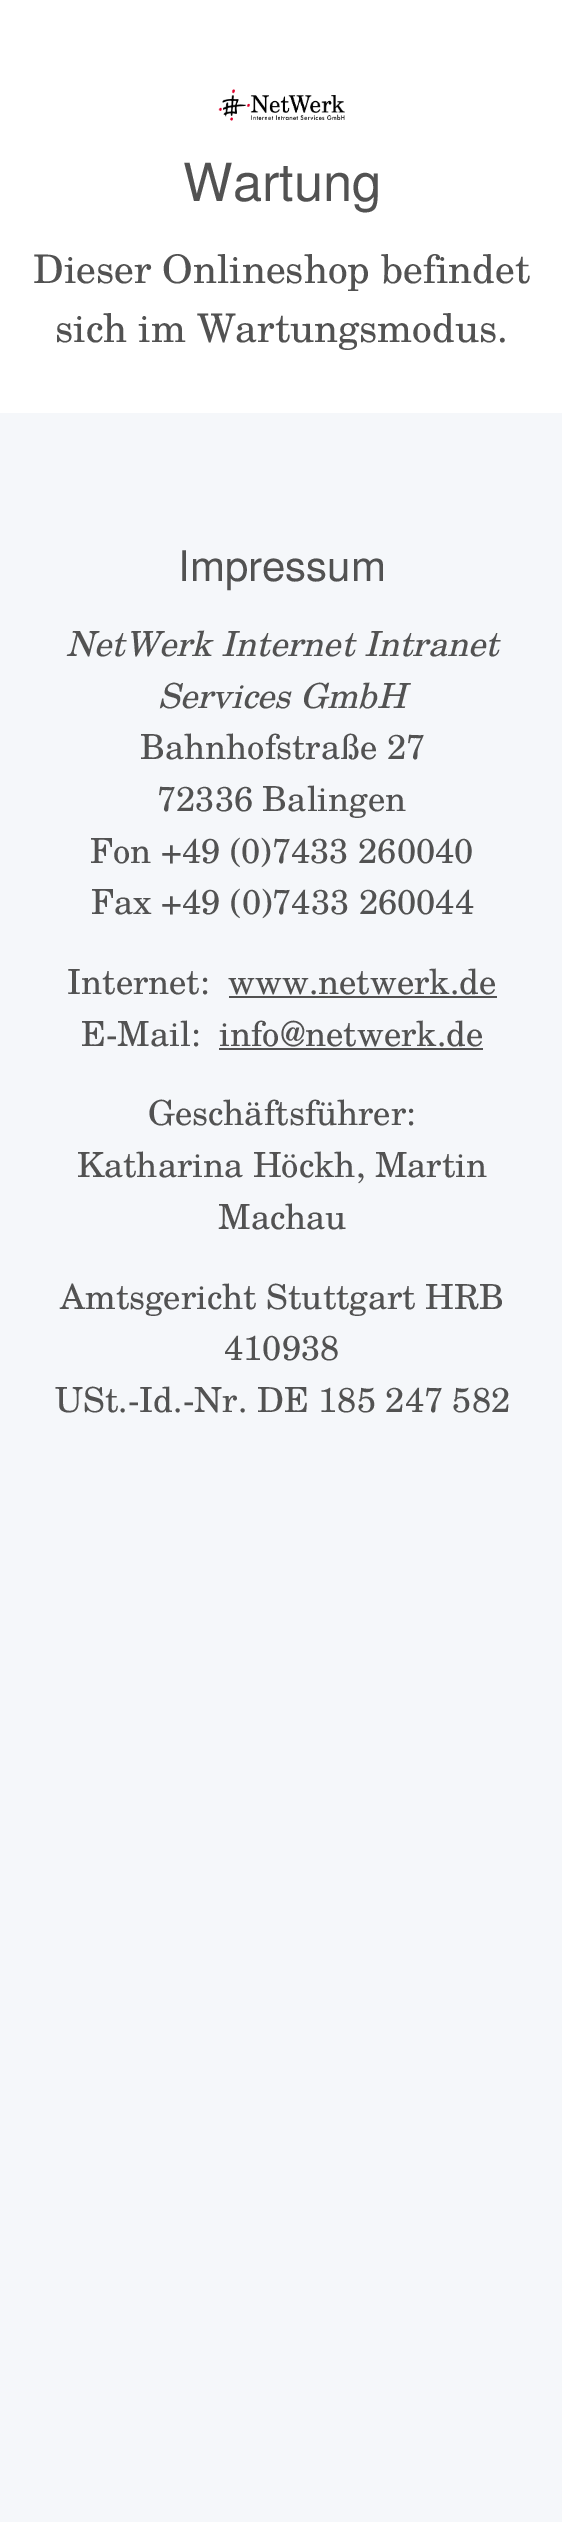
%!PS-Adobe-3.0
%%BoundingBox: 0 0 562 2522
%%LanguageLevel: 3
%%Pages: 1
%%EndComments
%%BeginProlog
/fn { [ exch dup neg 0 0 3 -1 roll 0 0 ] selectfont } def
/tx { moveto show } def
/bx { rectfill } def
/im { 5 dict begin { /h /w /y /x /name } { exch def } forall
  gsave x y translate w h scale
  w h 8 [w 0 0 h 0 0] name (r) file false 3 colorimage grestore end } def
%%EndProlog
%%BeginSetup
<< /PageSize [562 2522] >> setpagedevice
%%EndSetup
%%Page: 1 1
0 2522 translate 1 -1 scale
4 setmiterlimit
1 setgray
0 0 562 2522 bx
(image0.raw) 218 89 127 32 im
/TeXGyreHeros-Regular 52.5 fn
0.322 setgray
(Wartung) 183 201 tx
/TeXGyreSchola-Regular 39.4 fn
(Dieser Onlineshop befindet) 33 283 tx
(sich im Wartungsmodus.) 55 342 tx
0.961 0.969 0.98 setrgbcolor
0 413 562 2109 bx
/TeXGyreHeros-Regular 42 fn
0.322 setgray
(Impressum) 178 581 tx
/TeXGyreSchola-Italic 34.5 fn
(NetWerk Internet Intranet) 66 656 tx
(Services GmbH) 158 708 tx
/TeXGyreSchola-Regular 34.5 fn
(Bahnhofstraße 27) 140 759 tx
(72336 Balingen) 157 811 tx
(Fon +49 \(0\)7433 260040) 90 863 tx
(Fax +49 \(0\)7433 260044) 91 914 tx
(Internet:) 67 994 tx
(www.netwerk.de) 228 994 tx
229 996 268 2 bx
(E-Mail:) 81 1046 tx
(info@netwerk.de) 219 1046 tx
219 1048 264 2 bx
(Geschäftsführer:) 148 1125 tx
(Katharina Höckh, Martin) 77 1177 tx
(Machau) 218 1229 tx
(Amtsgericht Stuttgart HRB) 60 1309 tx
(410938) 224 1360 tx
(USt.-Id.-Nr. DE 185 247 582) 55 1412 tx
showpage
%%EOF
